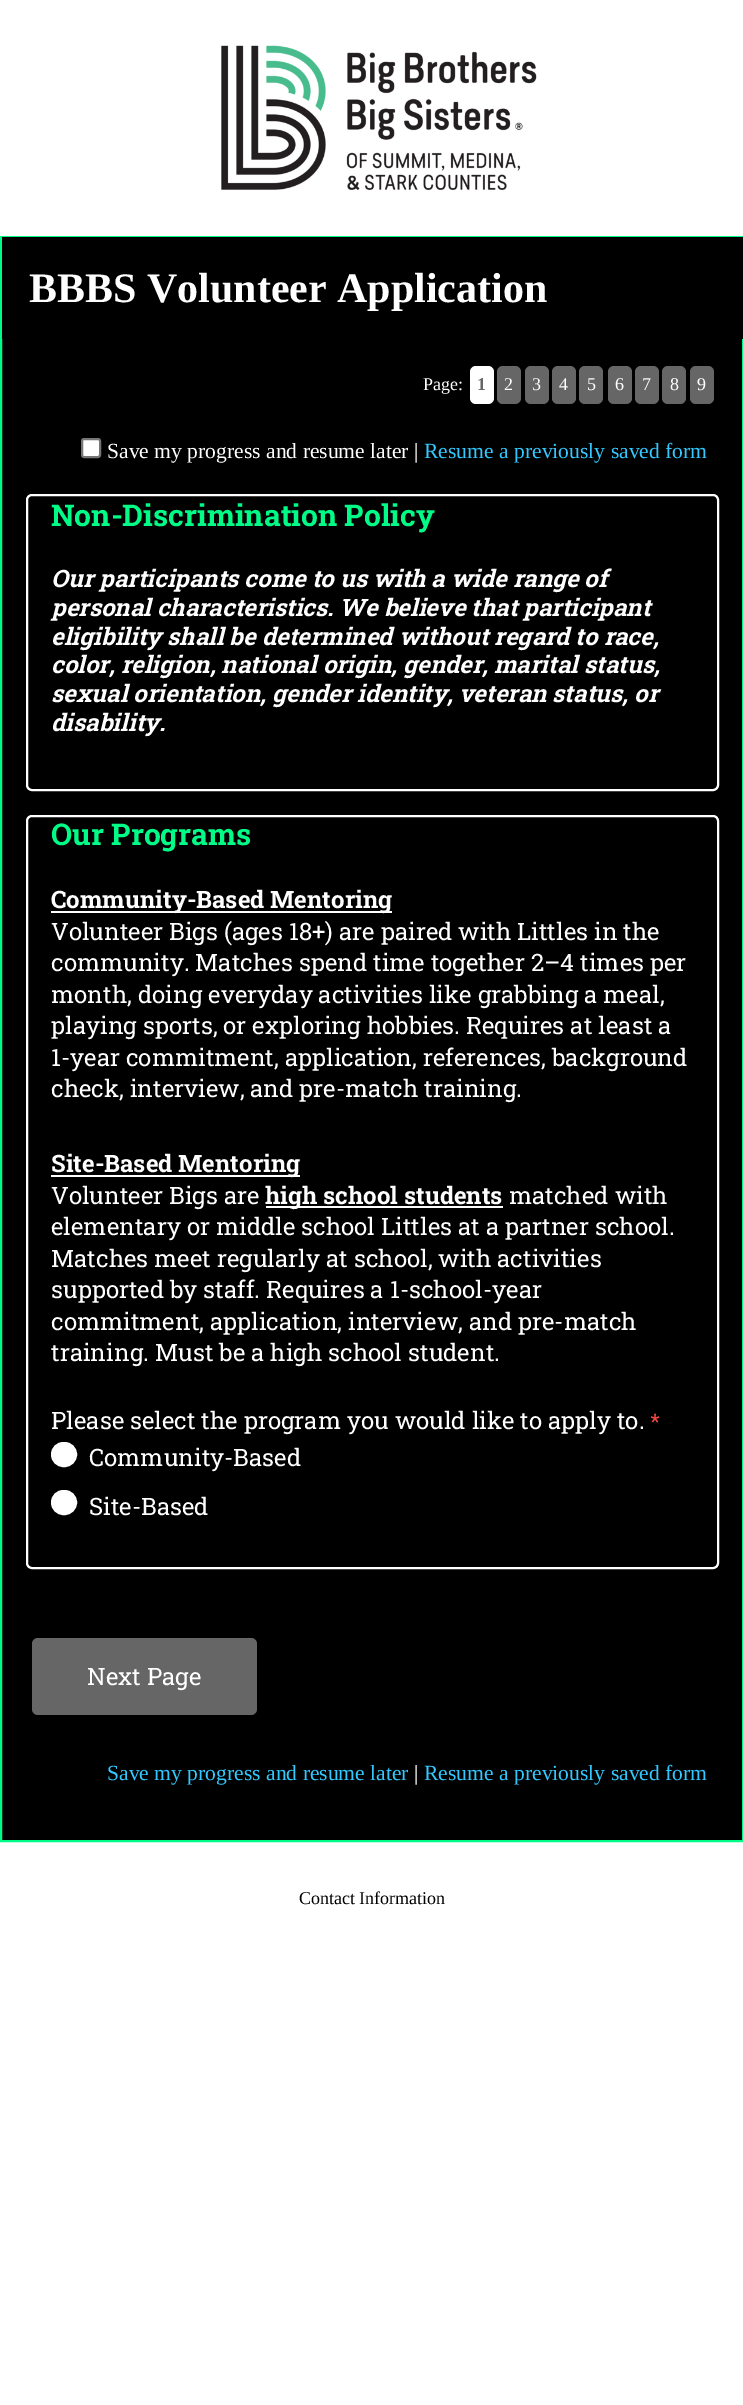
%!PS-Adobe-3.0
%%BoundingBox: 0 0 743 2405
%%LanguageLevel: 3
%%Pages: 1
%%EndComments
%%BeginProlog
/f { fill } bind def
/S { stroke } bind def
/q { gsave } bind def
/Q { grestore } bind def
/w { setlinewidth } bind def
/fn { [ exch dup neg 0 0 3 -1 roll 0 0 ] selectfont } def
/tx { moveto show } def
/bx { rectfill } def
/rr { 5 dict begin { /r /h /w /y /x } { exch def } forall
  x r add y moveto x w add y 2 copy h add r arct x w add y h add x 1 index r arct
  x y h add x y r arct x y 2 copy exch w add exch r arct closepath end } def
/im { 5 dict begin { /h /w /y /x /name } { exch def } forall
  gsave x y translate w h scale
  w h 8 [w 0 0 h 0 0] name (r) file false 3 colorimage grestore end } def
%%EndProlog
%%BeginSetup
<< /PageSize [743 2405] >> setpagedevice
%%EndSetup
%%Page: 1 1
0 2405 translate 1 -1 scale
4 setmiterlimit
1 setgray
0 0 743 2405 bx
(image0.raw) 221 45 316 146 im
0 setgray
2 339 740 1501 bx
0 0.988 0.529 setrgbcolor
2 w
1 237 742 1604 rectstroke
0 setgray
2 237 741 102 bx
/LiberationSerif-Bold 42 fn
1 setgray
(BBBS Volunteer Application) 29 302 tx
/LiberationSerif-Regular 18 fn
(Page:) 423 390 tx
470 366 24 38 6 rr f
/LiberationSerif-Bold 18 fn
0.4 setgray
(1) 477 390 tx
497 366 24 38 6 rr f
/LiberationSerif-Regular 18 fn
1 setgray
(2) 504 390 tx
0.4 setgray
525 366 24 38 6 rr f
1 setgray
(3) 532 390 tx
0.4 setgray
552 366 24 38 6 rr f
1 setgray
(4) 559 390 tx
0.4 setgray
579 366 24 38 6 rr f
1 setgray
(5) 587 390 tx
0.4 setgray
608 366 24 38 6 rr f
1 setgray
(6) 615 390 tx
0.4 setgray
635 366 24 38 6 rr f
1 setgray
(7) 642 390 tx
0.4 setgray
662 366 24 38 6 rr f
1 setgray
(8) 670 390 tx
0.4 setgray
690 366 24 38 6 rr f
1 setgray
(9) 697 390 tx
82 439 18 18 2 rr q f Q
0.463 setgray
S
/LiberationSerif-Regular 21.6 fn
1 setgray
(Save my progress and resume later |) 107 458 tx
0.2 0.788 1 setrgbcolor
(Resume a previously saved form) 424 458 tx
1 setgray
27 495 691 295 5 rr S
/RobotoSlab-Bold 30 fn
0 0.988 0.529 setrgbcolor
(Non-Discrimination Policy) 51 526 tx
/RobotoSlab-BoldItalic 24 fn
1 setgray
(Our participants come to us with a wide range of) 51 587 tx
(personal characteristics. We believe that participant) 51 616 tx
(eligibility shall be determined without regard to race,) 51 645 tx
(color, religion, national origin, gender, marital status,) 51 673 tx
(sexual orientation, gender identity, veteran status, or) 51 702 tx
(disability.) 51 731 tx
27 816 691 752 5 rr S
/RobotoSlab-Bold 30 fn
0 0.988 0.529 setrgbcolor
(Our Programs) 51 845 tx
1 setgray
51 911 341 2 bx
/RobotoSlab-Bold 24 fn
(Community-Based Mentoring) 51 908 tx
/RobotoSlab-Regular 24 fn
(Volunteer Bigs \(ages 18+\) are paired with Littles in the) 51 940 tx
(community. Matches spend time together 2–4 times per) 51 971 tx
(month, doing everyday activities like grabbing a meal,) 51 1003 tx
(playing sports, or exploring hobbies. Requires at least a) 51 1034 tx
(1-year commitment, application, references, background) 51 1066 tx
(check, interview, and pre-match training.) 51 1097 tx
51 1175 249 2 bx
/RobotoSlab-Bold 24 fn
(Site-Based Mentoring) 51 1172 tx
/RobotoSlab-Regular 24 fn
(Volunteer Bigs are) 51 1204 tx
266 1206 237 2 bx
/RobotoSlab-Bold 24 fn
(high school students) 265 1204 tx
/RobotoSlab-Regular 24 fn
(matched with) 509 1204 tx
(elementary or middle school Littles at a partner school.) 51 1235 tx
(Matches meet regularly at school, with activities) 51 1267 tx
(supported by staff. Requires a 1-school-year) 51 1298 tx
(commitment, application, interview, and pre-match) 51 1330 tx
(training. Must be a high school student.) 51 1361 tx
(Please select the program you would like to apply to.) 51 1429 tx
/RobotoSlab-Regular 21.6 fn
0.965 0.29 0.255 setrgbcolor
(*) 650 1429 tx
1 setgray
53.5 1444.5 21 20 10 rr q f Q
5 w
S
/RobotoSlab-Regular 24 fn
(Community-Based) 89 1466 tx
53.5 1492.5 21 20 10 rr q f Q
S
(Site-Based) 89 1515 tx
0.4 setgray
32 1638 225 77 6 rr f
1 setgray
(Next Page) 87 1685 tx
/LiberationSerif-Regular 21.6 fn
0.2 0.788 1 setrgbcolor
(Save my progress and resume later) 107 1780 tx
1 setgray
(|) 414 1780 tx
0.2 0.788 1 setrgbcolor
(Resume a previously saved form) 424 1780 tx
/LiberationSerif-Regular 18 fn
0 setgray
(Contact Information) 299 1904 tx
showpage
%%EOF
